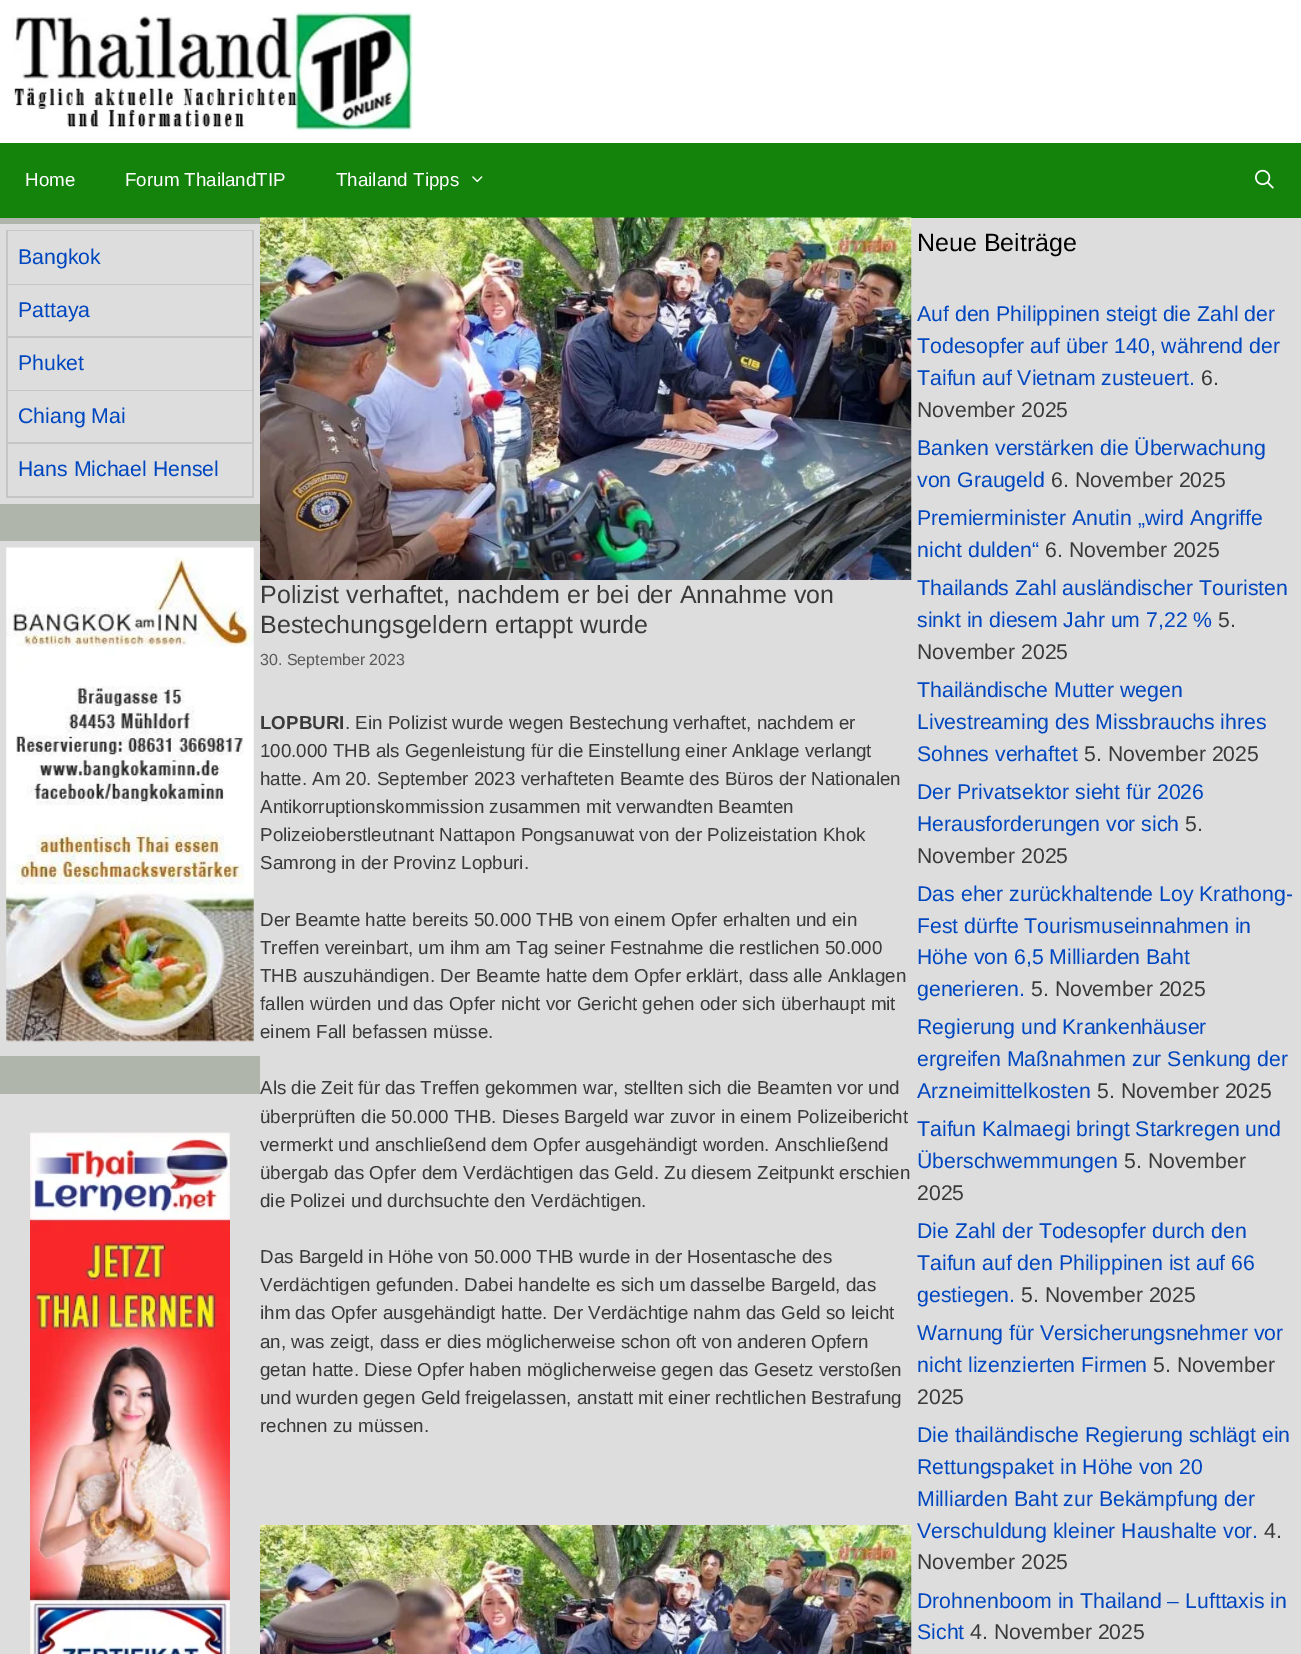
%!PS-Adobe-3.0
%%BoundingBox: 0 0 1301 1654
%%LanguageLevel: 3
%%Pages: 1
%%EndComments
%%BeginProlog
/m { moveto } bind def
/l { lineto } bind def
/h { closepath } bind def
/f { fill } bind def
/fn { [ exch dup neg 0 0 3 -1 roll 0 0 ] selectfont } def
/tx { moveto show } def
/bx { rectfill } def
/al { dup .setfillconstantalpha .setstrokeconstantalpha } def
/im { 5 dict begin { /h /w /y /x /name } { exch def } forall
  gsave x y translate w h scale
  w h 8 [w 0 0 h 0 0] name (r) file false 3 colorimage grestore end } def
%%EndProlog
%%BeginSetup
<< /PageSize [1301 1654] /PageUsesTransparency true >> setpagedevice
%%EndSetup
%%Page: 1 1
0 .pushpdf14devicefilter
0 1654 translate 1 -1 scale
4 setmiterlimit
0.686 0.71 0.667 setrgbcolor
0 0 1301 1654 bx
1 setgray
0 0 1301 143 bx
(image0.raw) 12 12 401 118 im
0.075 0.514 0.043 setrgbcolor
0 143 1301 75 bx
/LiberationSans-Regular 18.75 fn
1 setgray
(Home) 25 186 tx
(Forum ThailandTIP) 125 186 tx
(Thailand Tipps) 336 186 tx
(image1.raw) 472 176 11 7 im
(image2.raw) 1255 169 19 20 im
0.867 setgray
0 224 260 280 bx
0.78 setgray
6 230 m 254 230 l 254 231 l 8 231 l h f
0.1 al
0 setgray
6 498 m 6 230 l 8 231 l 8 498 l h f
1 al
0.78 setgray
254 231 m 254 285 l 252 284 l 252 231 l h f
0.1 al
0 setgray
254 285 m 8 285 l 8 284 l 252 284 l h f
/LiberationSans-Regular 21.25 fn
1 al
0 0.275 0.749 setrgbcolor
(Bangkok) 18 264 tx
0.78 setgray
254 285 m 254 338 l 252 336 l 252 285 l h f
0.1 al
0 setgray
254 338 m 8 338 l 8 336 l 252 336 l h f
1 al
0 0.275 0.749 setrgbcolor
(Pattaya) 18 317 tx
0.78 setgray
254 338 m 254 391 l 252 390 l 252 338 l h f
0.1 al
0 setgray
254 391 m 8 391 l 8 390 l 252 390 l h f
1 al
0 0.275 0.749 setrgbcolor
(Phuket) 18 370 tx
0.78 setgray
254 391 m 254 444 l 252 442 l 252 391 l h f
0.1 al
0 setgray
254 444 m 8 444 l 8 442 l 252 442 l h f
1 al
0 0.275 0.749 setrgbcolor
(Chiang Mai) 18 423 tx
0.78 setgray
254 444 m 254 498 l 252 496 l 252 444 l h f
0.1 al
0 setgray
254 498 m 8 498 l 8 496 l 252 496 l h f
1 al
0 0.275 0.749 setrgbcolor
(Hans Michael Hensel) 18 476 tx
0.867 setgray
0 541 260 515 bx
(image3.raw) 6 547 248 495 im
0 1094 260 560 bx
(image4.raw) 30 1132 200 522 im
911 218 390 1436 bx
/LiberationSans-Regular 25 fn
0 setgray
(Neue Beiträge) 917 251 tx
/LiberationSans-Regular 21.25 fn
0 0.275 0.749 setrgbcolor
(Auf den Philippinen steigt die Zahl der) 917 321 tx
(Todesopfer auf über 140, während der) 917 353 tx
(Taifun auf Vietnam zusteuert.) 917 385 tx
0.227 setgray
(6.) 1201 385 tx
(November 2025) 917 417 tx
0 0.275 0.749 setrgbcolor
(Banken verstärken die Überwachung) 917 455 tx
(von Graugeld) 917 487 tx
0.227 setgray
(6. November 2025) 1051 487 tx
0 0.275 0.749 setrgbcolor
(Premierminister Anutin „wird Angriffe) 917 525 tx
(nicht dulden“) 917 557 tx
0.227 setgray
(6. November 2025) 1045 557 tx
0 0.275 0.749 setrgbcolor
(Thailands Zahl ausländischer Touristen) 917 595 tx
(sinkt in diesem Jahr um 7,22 %) 917 627 tx
0.227 setgray
(5.) 1218 627 tx
(November 2025) 917 659 tx
0 0.275 0.749 setrgbcolor
(Thailändische Mutter wegen) 917 697 tx
(Livestreaming des Missbrauchs ihres) 917 729 tx
(Sohnes verhaftet) 917 761 tx
0.227 setgray
(5. November 2025) 1084 761 tx
0 0.275 0.749 setrgbcolor
(Der Privatsektor sieht für 2026) 917 799 tx
(Herausforderungen vor sich) 917 831 tx
0.227 setgray
(5.) 1185 831 tx
(November 2025) 917 863 tx
0 0.275 0.749 setrgbcolor
(Das eher zurückhaltende Loy Krathong-) 917 901 tx
(Fest dürfte Tourismuseinnahmen in) 917 933 tx
(Höhe von 6,5 Milliarden Baht) 917 964 tx
(generieren.) 917 996 tx
0.227 setgray
(5. November 2025) 1031 996 tx
0 0.275 0.749 setrgbcolor
(Regierung und Krankenhäuser) 917 1034 tx
(ergreifen Maßnahmen zur Senkung der) 917 1066 tx
(Arzneimittelkosten) 917 1098 tx
0.227 setgray
(5. November 2025) 1097 1098 tx
0 0.275 0.749 setrgbcolor
(Taifun Kalmaegi bringt Starkregen und) 917 1136 tx
(Überschwemmungen) 917 1168 tx
0.227 setgray
(5. November) 1124 1168 tx
(2025) 917 1200 tx
0 0.275 0.749 setrgbcolor
(Die Zahl der Todesopfer durch den) 917 1238 tx
(Taifun auf den Philippinen ist auf 66) 917 1270 tx
(gestiegen.) 917 1302 tx
0.227 setgray
(5. November 2025) 1021 1302 tx
0 0.275 0.749 setrgbcolor
(Warnung für Versicherungsnehmer vor) 917 1340 tx
(nicht lizenzierten Firmen) 917 1372 tx
0.227 setgray
(5. November) 1153 1372 tx
(2025) 917 1404 tx
0 0.275 0.749 setrgbcolor
(Die thailändische Regierung schlägt ein) 917 1442 tx
(Rettungspaket in Höhe von 20) 917 1474 tx
(Milliarden Baht zur Bekämpfung der) 917 1506 tx
(Verschuldung kleiner Haushalte vor.) 917 1538 tx
0.227 setgray
(4.) 1264 1538 tx
(November 2025) 917 1569 tx
0 0.275 0.749 setrgbcolor
(Drohnenboom in Thailand – Lufttaxis in) 917 1608 tx
(Sicht) 917 1639 tx
0.227 setgray
(4. November 2025) 970 1639 tx
0.867 setgray
260 580 651 945 bx
(image5.raw) 260 217 652 363 im
/LiberationSans-Regular 25 fn
0.227 setgray
(Polizist verhaftet, nachdem er bei der Annahme von) 260 603 tx
(Bestechungsgeldern ertappt wurde) 260 633 tx
/LiberationSans-Regular 16 fn
0.349 setgray
(30. September 2023) 260 665 tx
/LiberationSans-Bold 18.75 fn
0.227 setgray
(LOPBURI) 260 729 tx
/LiberationSans-Regular 18.75 fn
(. Ein Polizist wurde wegen Bestechung verhaftet, nachdem er) 345 729 tx
(100.000 THB als Gegenleistung für die Einstellung einer Anklage verlangt) 260 757 tx
(hatte. Am 20. September 2023 verhafteten Beamte des Büros der Nationalen) 260 785 tx
(Antikorruptionskommission zusammen mit verwandten Beamten) 260 813 tx
(Polizeioberstleutnant Nattapon Pongsanuwat von der Polizeistation Khok) 260 841 tx
(Samrong in der Provinz Lopburi.) 260 869 tx
(Der Beamte hatte bereits 50.000 THB von einem Opfer erhalten und ein) 260 926 tx
(Treffen vereinbart, um ihm am Tag seiner Festnahme die restlichen 50.000) 260 954 tx
(THB auszuhändigen. Der Beamte hatte dem Opfer erklärt, dass alle Anklagen) 260 982 tx
(fallen würden und das Opfer nicht vor Gericht gehen oder sich überhaupt mit) 260 1010 tx
(einem Fall befassen müsse.) 260 1038 tx
(Als die Zeit für das Treffen gekommen war, stellten sich die Beamten vor und) 260 1094 tx
(überprüften die 50.000 THB. Dieses Bargeld war zuvor in einem Polizeibericht) 260 1123 tx
(vermerkt und anschließend dem Opfer ausgehändigt worden. Anschließend) 260 1151 tx
(übergab das Opfer dem Verdächtigen das Geld. Zu diesem Zeitpunkt erschien) 260 1179 tx
(die Polizei und durchsuchte den Verdächtigen.) 260 1207 tx
(Das Bargeld in Höhe von 50.000 THB wurde in der Hosentasche des) 260 1263 tx
(Verdächtigen gefunden. Dabei handelte es sich um dasselbe Bargeld, das) 260 1291 tx
(ihm das Opfer ausgehändigt hatte. Der Verdächtige nahm das Geld so leicht) 260 1319 tx
(an, was zeigt, dass er dies möglicherweise schon oft von anderen Opfern) 260 1348 tx
(getan hatte. Diese Opfer haben möglicherweise gegen das Gesetz verstoßen) 260 1376 tx
(und wurden gegen Geld freigelassen, anstatt mit einer rechtlichen Bestrafung) 260 1404 tx
(rechnen zu müssen.) 260 1432 tx
(image6.raw) 260 1525 652 129 im
.poppdf14devicefilter showpage
%%EOF
